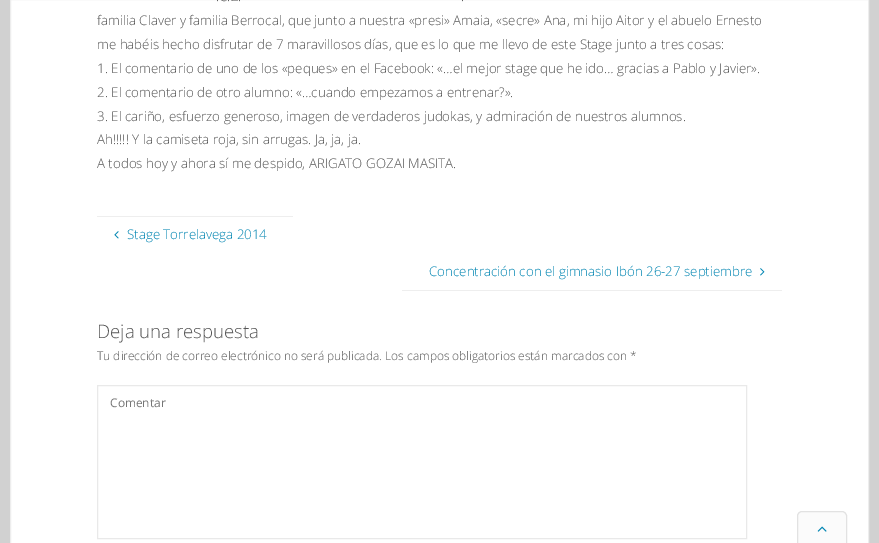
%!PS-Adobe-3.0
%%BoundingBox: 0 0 879 543
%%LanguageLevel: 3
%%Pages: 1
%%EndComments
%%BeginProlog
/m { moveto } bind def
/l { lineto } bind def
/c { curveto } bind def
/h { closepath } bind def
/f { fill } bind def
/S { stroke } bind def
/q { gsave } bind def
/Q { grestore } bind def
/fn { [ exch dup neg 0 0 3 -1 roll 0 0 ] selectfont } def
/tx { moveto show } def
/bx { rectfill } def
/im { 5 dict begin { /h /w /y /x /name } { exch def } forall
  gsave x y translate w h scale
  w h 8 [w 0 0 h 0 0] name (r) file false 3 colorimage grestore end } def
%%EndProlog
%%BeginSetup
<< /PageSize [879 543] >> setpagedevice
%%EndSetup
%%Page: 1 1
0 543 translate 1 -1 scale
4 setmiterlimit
0.82 setgray
0 0 879 543 bx
1 setgray
10.5 -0.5 m 868.5 -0.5 l 868.5 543.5 l 10.5 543.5 l h q f Q
0.929 setgray
S
/OpenSans-Light 13.3 fn
0.333 setgray
(.C.Z.) 216 1 tx
(.) 461 1 tx
(familia Claver y familia Berrocal, que junto a nuestra «presi» Amaia, «secre» Ana, mi hijo Aitor y el abuelo Ernesto) 97 25 tx
(me habéis hecho disfrutar de 7 maravillosos días, que es lo que me llevo de este Stage junto a tres cosas:) 97 49 tx
(1. El comentario de uno de los «peques» en el Facebook: «…el mejor stage que he ido… gracias a Pablo y Javier».) 97 73 tx
(2. El comentario de otro alumno: «…cuando empezamos a entrenar?».) 97 97 tx
(3. El cariño, esfuerzo generoso, imagen de verdaderos judokas, y admiración de nuestros alumnos.) 97 121 tx
(Ah!!!!! Y la camiseta roja, sin arrugas. Ja, ja, ja.) 97 144 tx
(A todos hoy y ahora sí me despido, ARIGATO GOZAI MASITA.) 97 168 tx
0.933 setgray
97 216 196 1 bx
(image0.raw) 114 231 5 8 im
0 0.522 0.698 setrgbcolor
(Stage Torrelavega 2014) 127 239 tx
(Concentración con el gimnasio Ibón 26-27 septiembre) 429 276 tx
(image1.raw) 760 268 5 8 im
0.933 setgray
402 290 380 1 bx
/OpenSans-Light 18.6 fn
0.333 setgray
(Deja una respuesta) 97 338 tx
/OpenSans-Light 11.95 fn
(Tu dirección de correo electrónico no será publicada. Los campos obligatorios están marcados con *) 97 360 tx
0.914 setgray
97.5 385.5 649 153 rectstroke
/OpenSans-Regular 11.95 fn
0.459 setgray
(Comentar) 110 407 tx
0.984 setgray
802 511.5 m 842 511.5 l 844.5 511.5 846.5 513.5 846.5 516 c 846.5 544.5 l 797.5 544.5 l 797.5 516 l 797.5 513.5 799.5 511.5 802 511.5 c h q f Q
0.886 setgray
S
(image2.raw) 817 526 10 6 im
showpage
%%EOF
